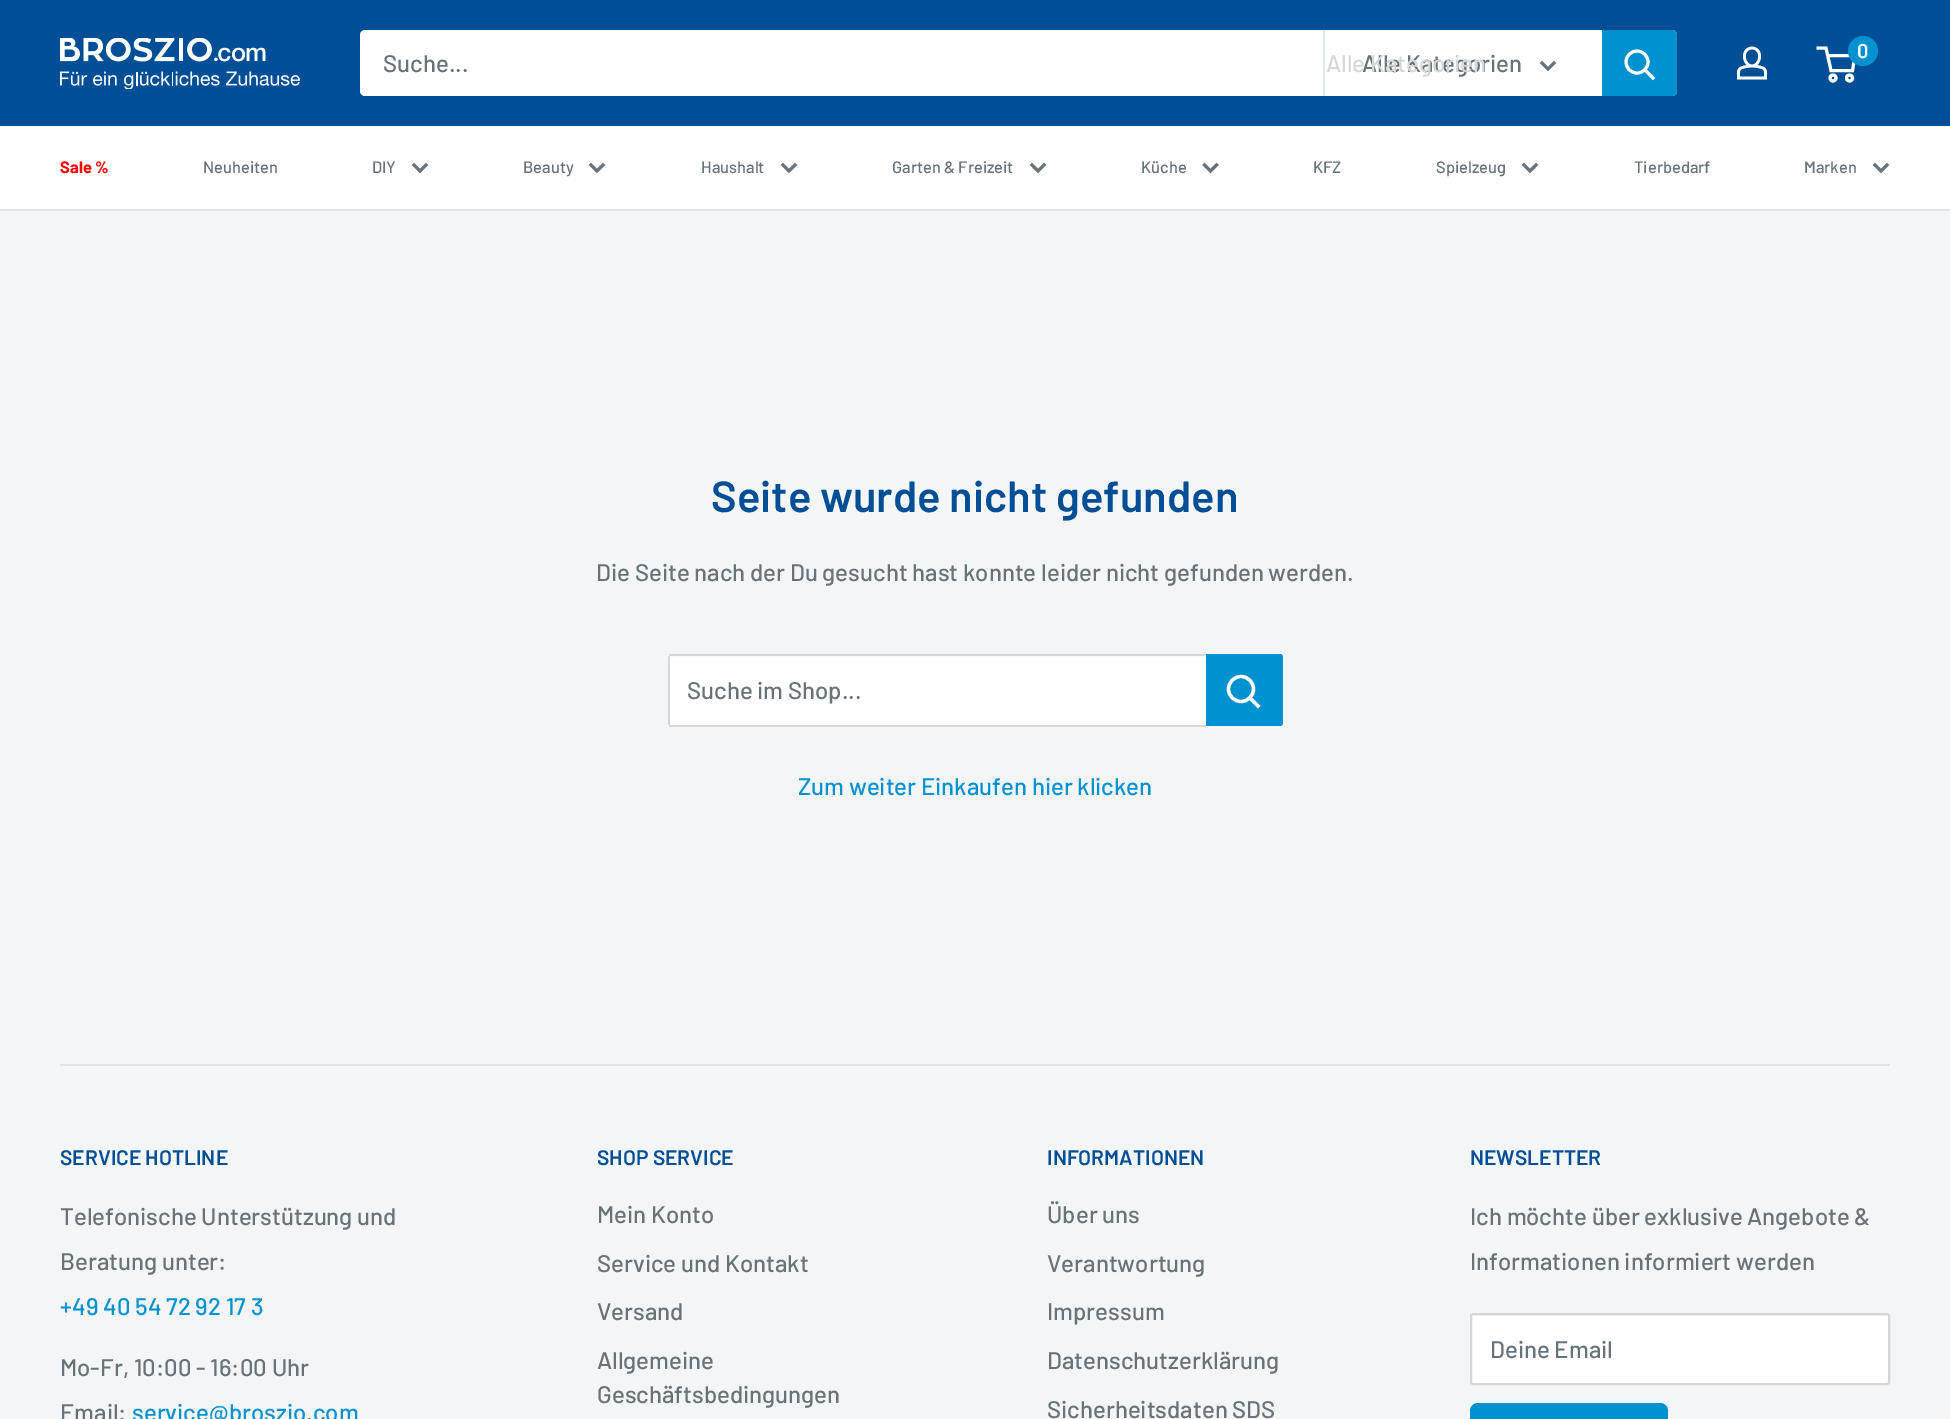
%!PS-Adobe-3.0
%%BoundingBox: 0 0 1950 1419
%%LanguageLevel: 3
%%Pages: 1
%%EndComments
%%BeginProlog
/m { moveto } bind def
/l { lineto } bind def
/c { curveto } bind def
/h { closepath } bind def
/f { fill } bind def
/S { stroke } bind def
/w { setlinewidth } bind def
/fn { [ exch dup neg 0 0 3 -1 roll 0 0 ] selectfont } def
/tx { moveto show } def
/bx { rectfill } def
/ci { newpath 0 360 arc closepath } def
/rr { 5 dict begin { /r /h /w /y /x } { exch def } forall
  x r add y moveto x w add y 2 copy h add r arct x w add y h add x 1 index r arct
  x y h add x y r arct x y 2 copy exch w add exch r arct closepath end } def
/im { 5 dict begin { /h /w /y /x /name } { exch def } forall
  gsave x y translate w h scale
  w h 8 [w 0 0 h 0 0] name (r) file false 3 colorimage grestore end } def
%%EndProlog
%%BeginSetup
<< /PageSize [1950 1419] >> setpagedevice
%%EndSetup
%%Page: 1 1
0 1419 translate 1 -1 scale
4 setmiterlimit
0.953 0.961 0.965 setrgbcolor
0 0 1950 1419 bx
0 0.31 0.588 setrgbcolor
0 0 1950 126 bx
(image0.raw) 60 38 240 51 im
(image1.raw) 1737 46 30 34 im
1 setgray
3 w
1833 78 3 ci S
1849.5 78 3 ci S
1827.5 55.5 m 1855 55.5 l 1852.5 70.5 l 1831 70.5 l 1826 48 l 1816.5 48 l S
0 0.569 0.816 setrgbcolor
1863 51 15 ci f
/Barlow-SemiBold 20 fn
1 setgray
(0) 1857 58 tx
360 30 1317 66 5 rr f
/Barlow-Medium 24 fn
0.404 0.447 0.475 setrgbcolor
(Suche...) 383 72 tx
0.89 0.906 0.98 setrgbcolor
1323 30 2 66 bx
0.404 0.447 0.475 setrgbcolor
(Alle Kategorien) 1362 72 tx
0.835 0.847 0.855 setrgbcolor
(Alle Kategorien) 1326 72 tx
0.404 0.447 0.475 setrgbcolor
2 setlinecap
1554 63 m 1548 69 l 1542 63 l S
0 0.569 0.816 setrgbcolor
1602 30 m 1672 30 l 1675 30 1677 32 1677 35 c 1677 91 l 1677 94 1675 96 1672 96 c 1602 96 l h f
1 setgray
1653 78 m 1645.5 70.5 l S
0 setlinecap
1637 62 11 ci S
0 126 1950 83 bx
0.882 0.89 0.894 setrgbcolor
0 209 1950 2 bx
/Barlow-Bold 16.5 fn
1 0 0 setrgbcolor
(Sale %) 60 173 tx
/Barlow-Medium 16.5 fn
0.404 0.447 0.475 setrgbcolor
(Neuheiten) 203 173 tx
(DIY) 372 173 tx
2 setlinecap
426 165 m 420 171 l 414 165 l S
(Beauty) 523 173 tx
603 165 m 597 171 l 591 165 l S
(Haushalt) 701 173 tx
795 165 m 789 171 l 783 165 l S
(Garten & Freizeit) 892 173 tx
1044 165 m 1038 171 l 1032 165 l S
(Küche) 1141 173 tx
1216.5 165 m 1210.5 171 l 1204.5 165 l S
(KFZ) 1313 173 tx
(Spielzeug) 1436 173 tx
1536 165 m 1530 171 l 1524 165 l S
(Tierbedarf) 1634 173 tx
(Marken) 1804 173 tx
1887 165 m 1881 171 l 1875 165 l S
/Barlow-SemiBold 43.5 fn
0 0.31 0.588 setrgbcolor
(Seite wurde nicht gefunden) 711 512 tx
/Barlow-Medium 24 fn
0.404 0.447 0.475 setrgbcolor
(Die Seite nach der Du gesucht hast konnte leider nicht gefunden werden.) 596 581 tx
1 setgray
671 654 m 1206 654 l 1206 726 l 671 726 l 669.5 726 668 724.5 668 723 c 668 657 l 668 655.5 669.5 654 671 654 c h f
0.973 setgray
670 657 m 1206 657 l 1206 656 l 670 656 l 669 656 669 657 669 658 c h f
0.831 0.839 0.847 setrgbcolor
669 654 537 2 bx
669 725 537 2 bx
668 656 2 69 bx
0.404 0.447 0.475 setrgbcolor
(Suche im Shop...) 687 699 tx
0 0.569 0.816 setrgbcolor
1206 654 m 1280 654 l 1281.5 654 1283 655.5 1283 657 c 1283 723 l 1283 724.5 1281.5 726 1280 726 c 1206 726 l h f
1 setgray
3.3 w
1258 706 m 1250 698 l S
0 setlinecap
1241 689 12.5 ci S
0 0.569 0.816 setrgbcolor
(Zum weiter Einkaufen hier klicken) 798 795 tx
0.882 0.89 0.894 setrgbcolor
60 1064 1830 2 bx
/Barlow-SemiBold 21 fn
0 0.31 0.588 setrgbcolor
(SERVICE HOTLINE) 60 1165 tx
/Barlow-Medium 24 fn
0.404 0.447 0.475 setrgbcolor
(Telefonische Unterstützung und) 60 1225 tx
(Beratung unter:) 60 1270 tx
0 0.569 0.816 setrgbcolor
(+49 40 54 72 92 17 3) 60 1315 tx
0.404 0.447 0.475 setrgbcolor
(Mo-Fr, 10:00 - 16:00 Uhr) 60 1376 tx
(Email:) 60 1421 tx
0 0.569 0.816 setrgbcolor
(service@broszio.com) 132 1421 tx
/Barlow-SemiBold 21 fn
0 0.31 0.588 setrgbcolor
(SHOP SERVICE) 597 1165 tx
/Barlow-Medium 24 fn
0.404 0.447 0.475 setrgbcolor
(Mein Konto) 597 1223 tx
(Service und Kontakt) 597 1272 tx
(Versand) 597 1320 tx
(Allgemeine) 597 1369 tx
(Geschäftsbedingungen) 597 1403 tx
/Barlow-SemiBold 21 fn
0 0.31 0.588 setrgbcolor
(INFORMATIONEN) 1047 1165 tx
/Barlow-Medium 24 fn
0.404 0.447 0.475 setrgbcolor
(Über uns) 1047 1223 tx
(Verantwortung) 1047 1272 tx
(Impressum) 1047 1320 tx
(Datenschutzerklärung) 1047 1369 tx
(Sicherheitsdaten SDS) 1047 1418 tx
/Barlow-SemiBold 21 fn
0 0.31 0.588 setrgbcolor
(NEWSLETTER) 1470 1165 tx
/Barlow-Medium 24 fn
0.404 0.447 0.475 setrgbcolor
(Ich möchte über exklusive Angebote &) 1470 1225 tx
(Informationen informiert werden) 1470 1270 tx
1 setgray
1470 1313 420 72 3 rr f
0.973 setgray
1473 1316 m 1887 1316 l 1888 1316 1888 1316 1888 1317 c 1888 1383 l 1889 1382 l 1889 1316 l 1889 1315 1888 1314 1888 1314 c 1473 1314 l 1472 1317 l 1472 1316 1472 1316 1473 1316 c h f
0.831 0.839 0.847 setrgbcolor
2 w
1471 1314 418 70 2 rr S
0.404 0.447 0.475 setrgbcolor
(Deine Email) 1490 1358 tx
0 0.569 0.816 setrgbcolor
1470 1403 198 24 8 rr f
showpage
%%EOF
